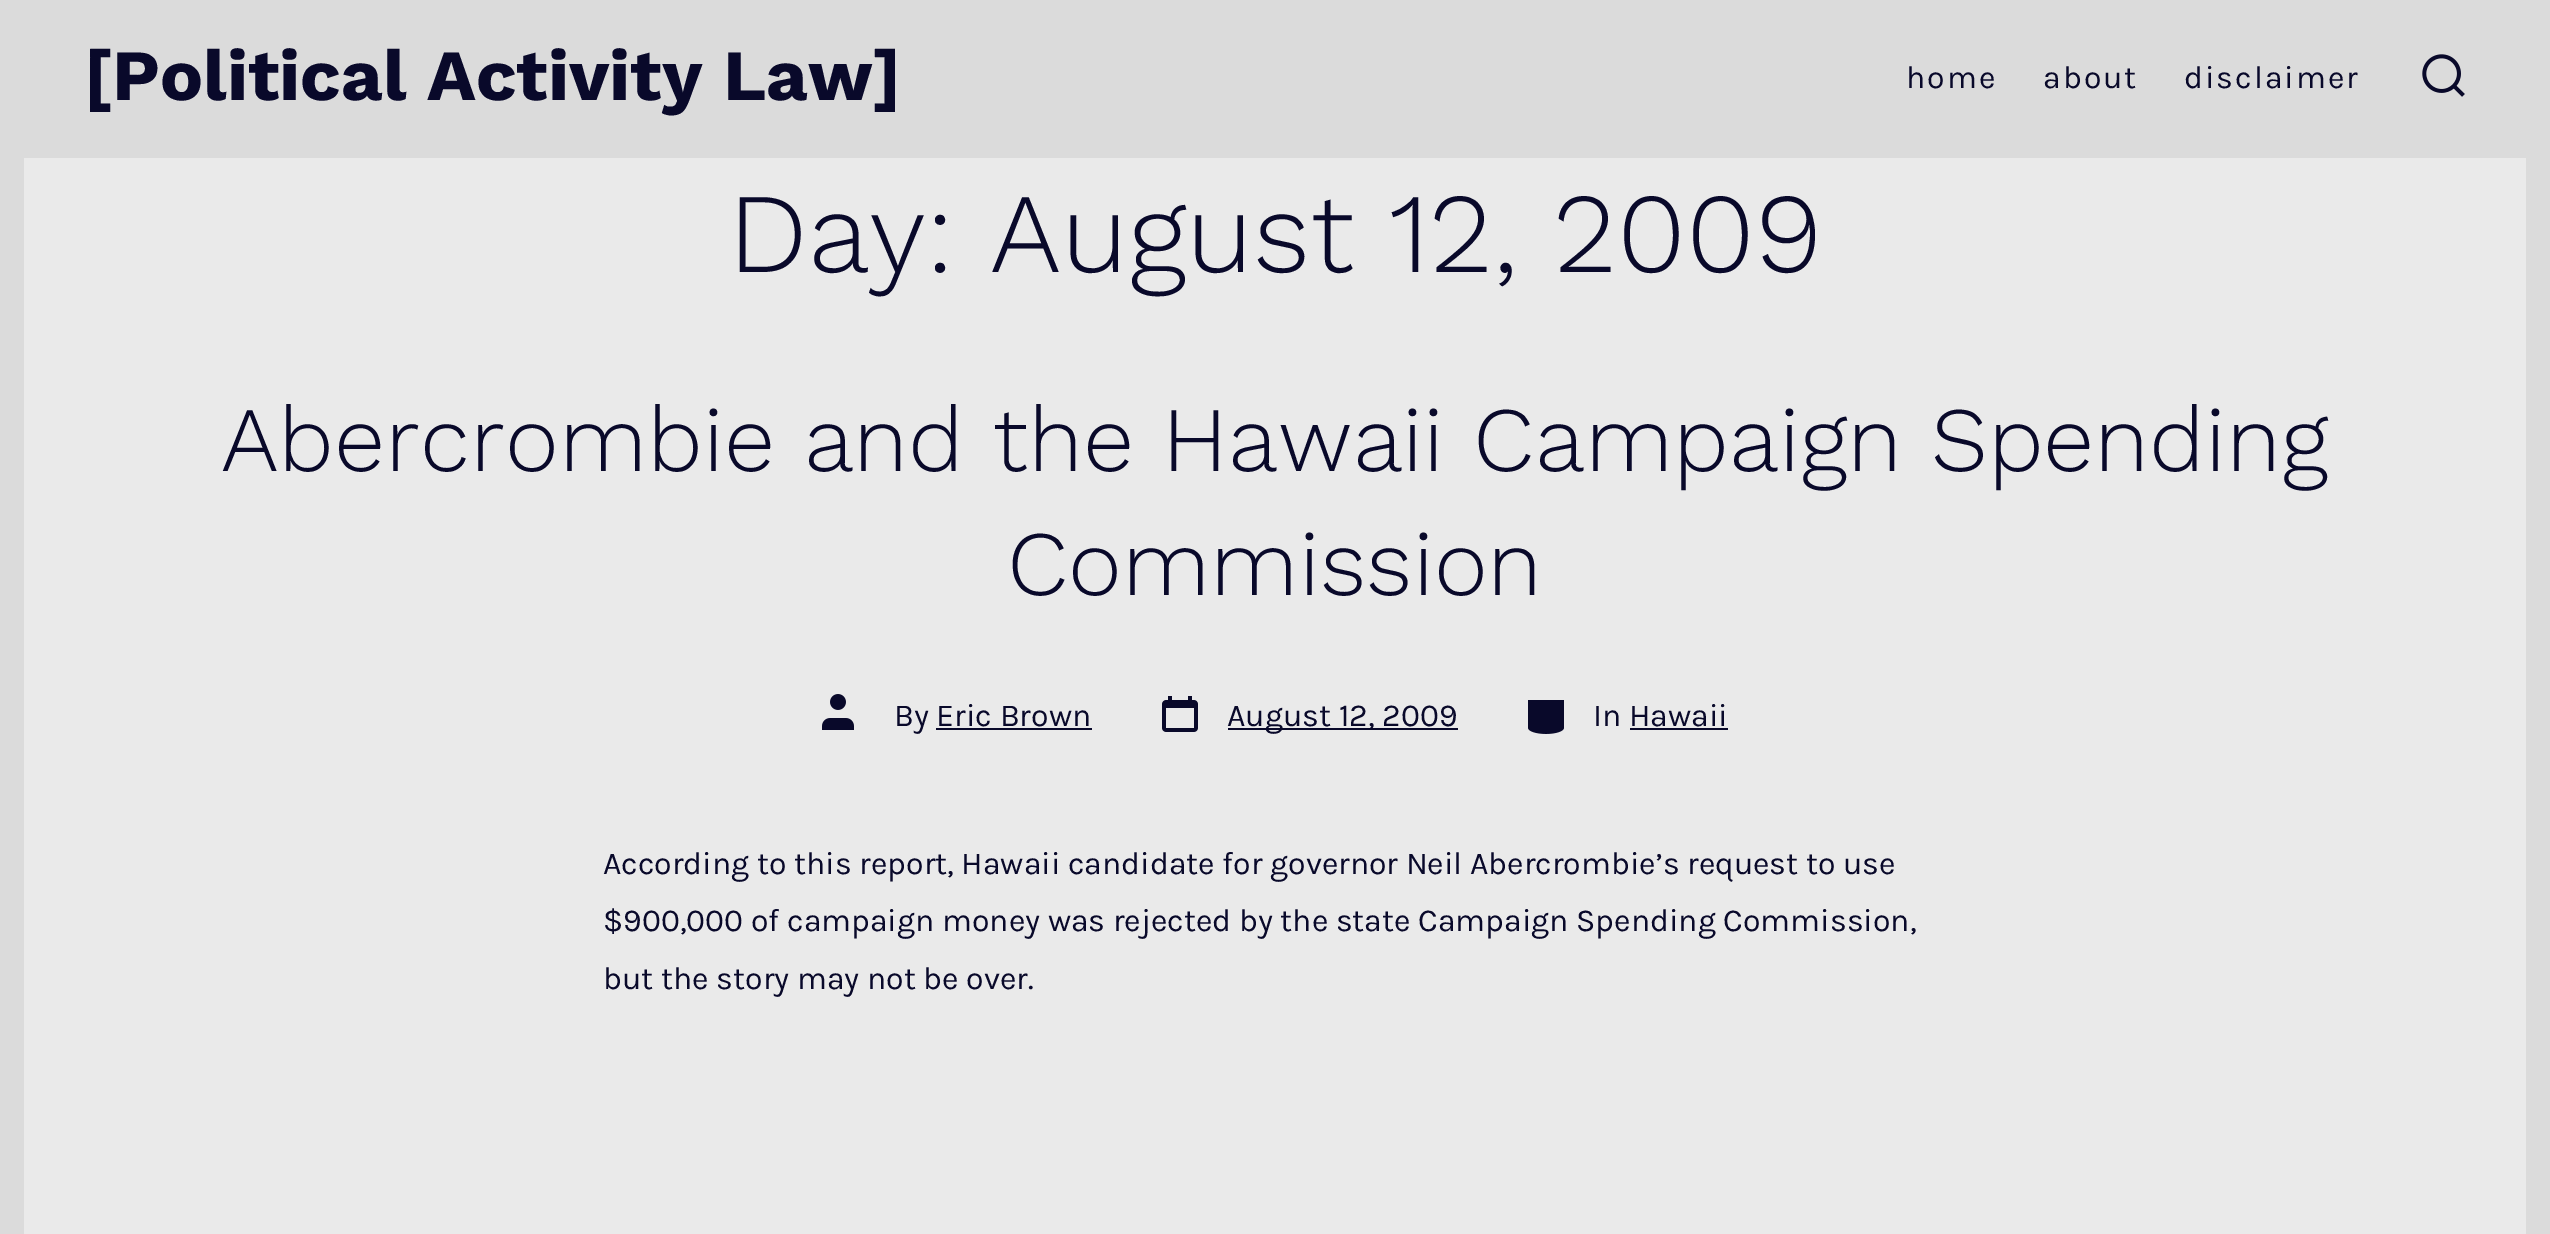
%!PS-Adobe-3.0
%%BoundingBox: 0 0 2550 1234
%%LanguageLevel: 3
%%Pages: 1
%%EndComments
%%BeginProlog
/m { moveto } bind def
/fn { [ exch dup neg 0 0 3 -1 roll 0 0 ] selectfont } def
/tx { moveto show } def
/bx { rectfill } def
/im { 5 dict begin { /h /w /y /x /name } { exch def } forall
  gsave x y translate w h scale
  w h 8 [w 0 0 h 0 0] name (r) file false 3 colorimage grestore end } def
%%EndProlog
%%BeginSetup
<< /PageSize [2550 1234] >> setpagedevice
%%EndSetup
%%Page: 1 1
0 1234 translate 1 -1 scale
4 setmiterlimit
0.918 setgray
0 0 2550 1234 bx
0.859 setgray
2526 0 24 1234 bx
0 0 24 1234 bx
24 0 2502 158 bx
/WorkSans-Bold 72 fn
0.035 0.035 0.165 setrgbcolor
([Political Activity Law]) 84 100 tx
/Karla-Regular 32 fn
1906 88 m 2 0 (home) ashow
2043 88 m 2 0 (about) ashow
2184 88 m 2 0 (disclaimer) ashow
(image0.raw) 2422 54 43 43 im
/WorkSans-Light 113.5 fn
(Day: August 12, 2009) 728 272 tx
/WorkSans-Light 91.9 fn
(Abercrombie and the Hawaii Campaign Spending) 221 471 tx
(Commission) 1007 595 tx
(image1.raw) 822 694 32 36 im
/Karla-Regular 32 fn
(By Eric Brown) 894 726 tx
936 728 156 2 bx
(image2.raw) 1162 696 36 36 im
1228 728 230 2 bx
(August 12, 2009) 1227 726 tx
(image3.raw) 1528 700 36 34 im
(In Hawaii) 1593 726 tx
1630 728 98 2 bx
(According to this report, Hawaii candidate for governor Neil Abercrombie’s request to use) 603 874 tx
($900,000 of campaign money was rejected by the state Campaign Spending Commission,) 603 931 tx
(but the story may not be over.) 603 989 tx
showpage
%%EOF
